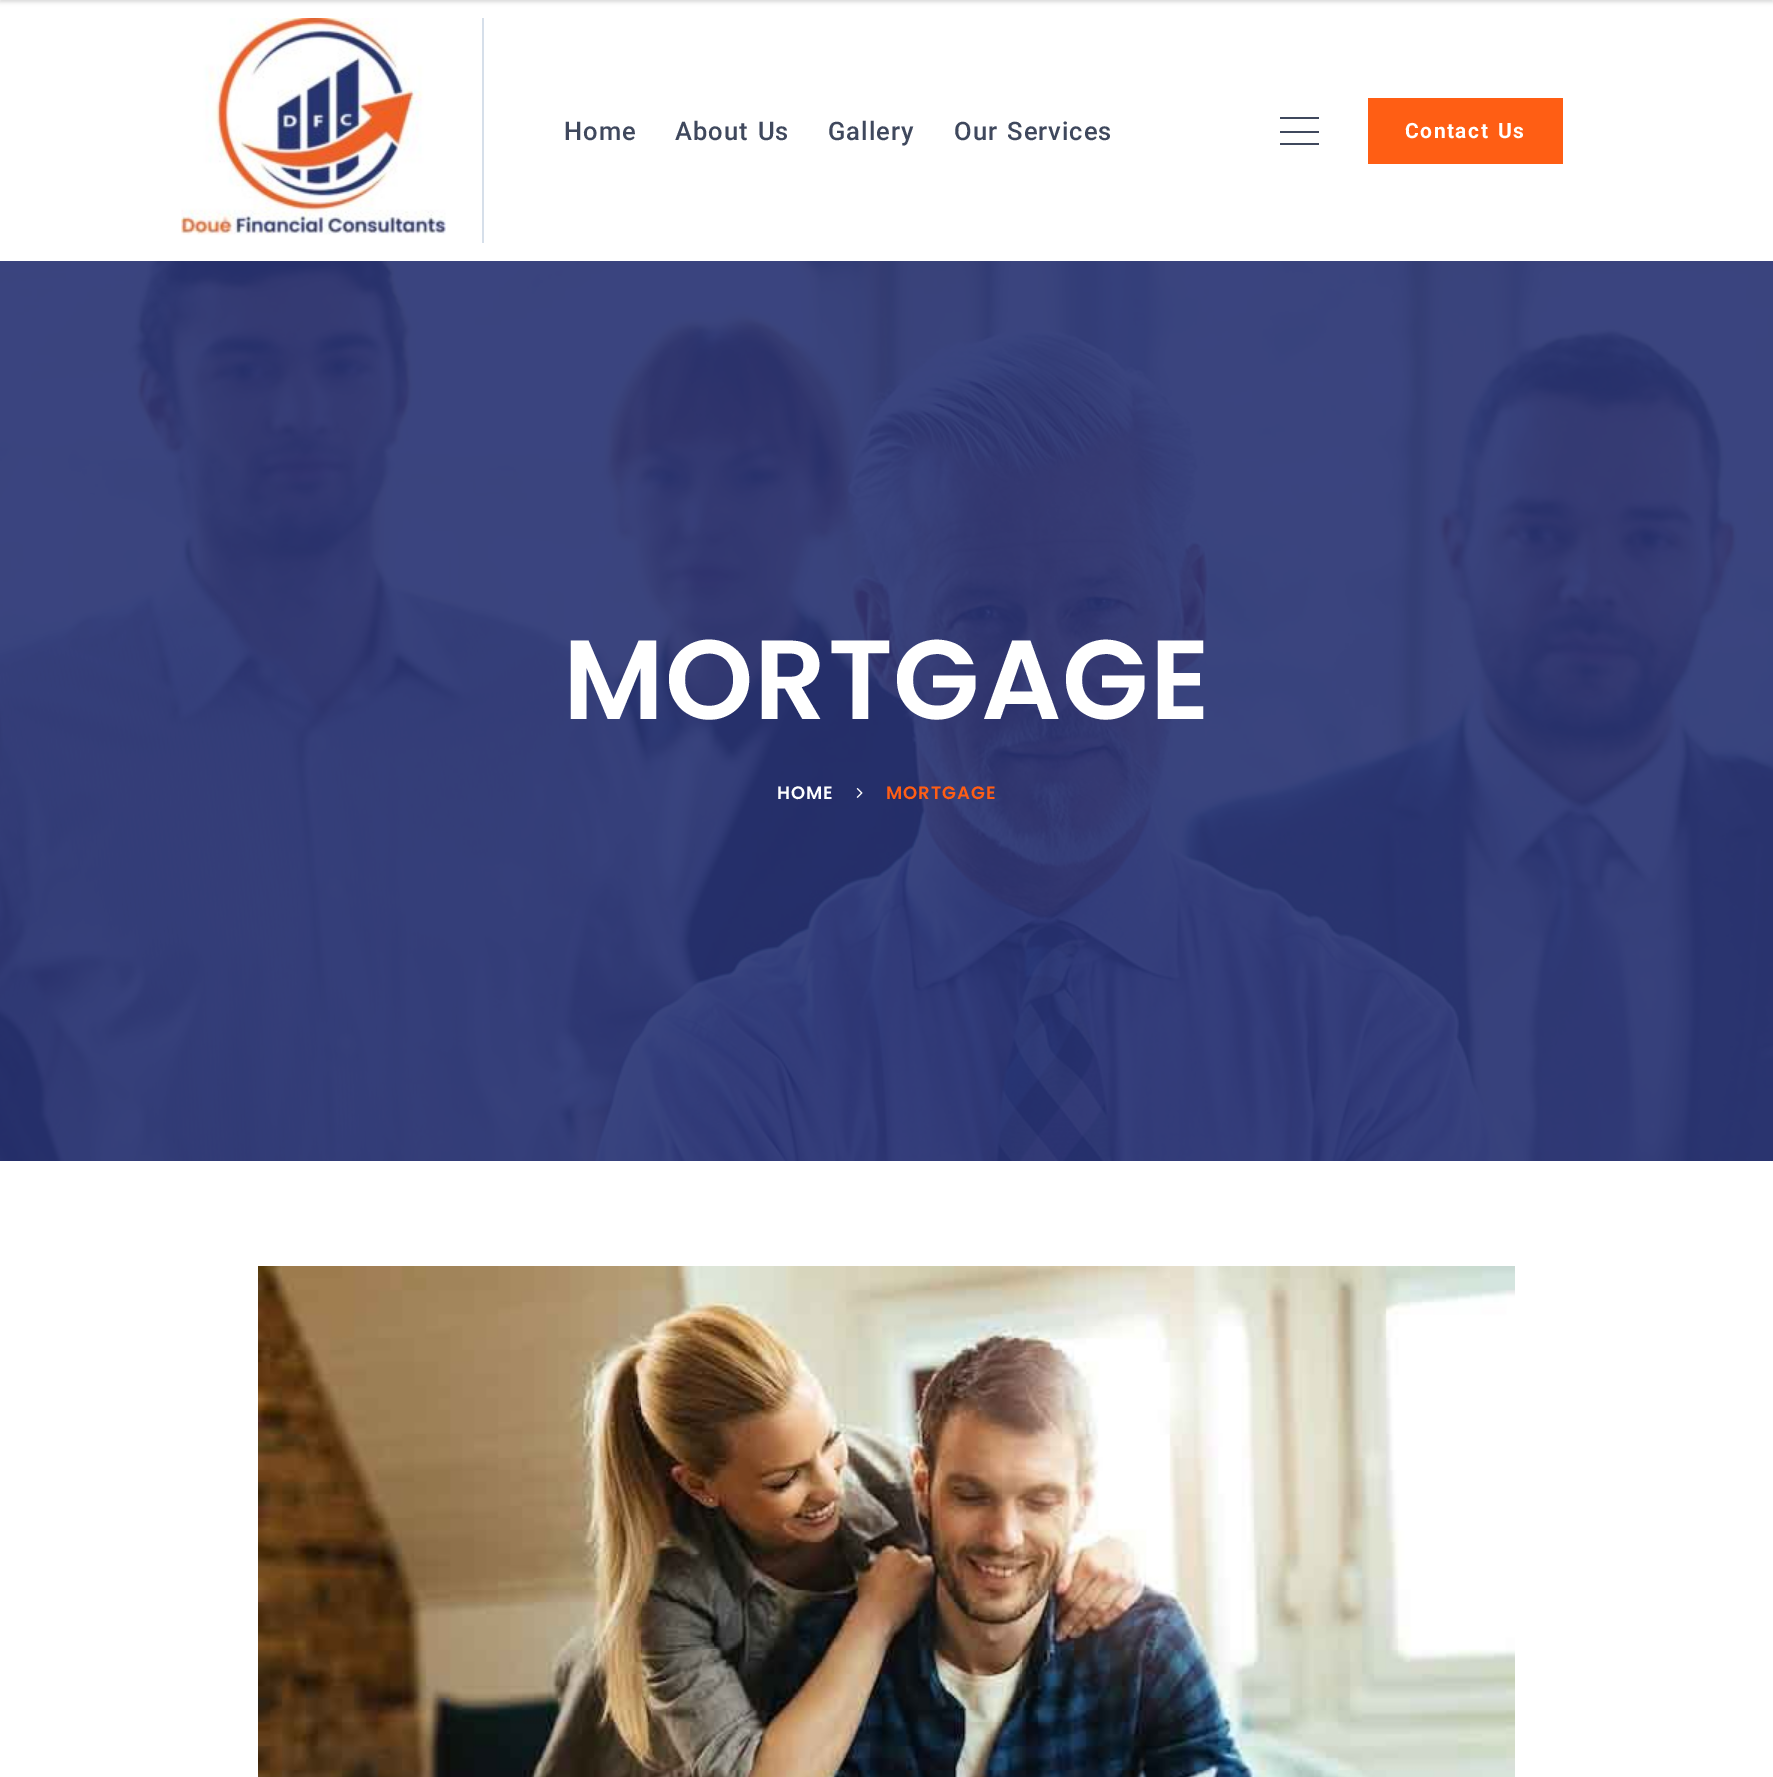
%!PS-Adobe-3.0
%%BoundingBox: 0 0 1773 1777
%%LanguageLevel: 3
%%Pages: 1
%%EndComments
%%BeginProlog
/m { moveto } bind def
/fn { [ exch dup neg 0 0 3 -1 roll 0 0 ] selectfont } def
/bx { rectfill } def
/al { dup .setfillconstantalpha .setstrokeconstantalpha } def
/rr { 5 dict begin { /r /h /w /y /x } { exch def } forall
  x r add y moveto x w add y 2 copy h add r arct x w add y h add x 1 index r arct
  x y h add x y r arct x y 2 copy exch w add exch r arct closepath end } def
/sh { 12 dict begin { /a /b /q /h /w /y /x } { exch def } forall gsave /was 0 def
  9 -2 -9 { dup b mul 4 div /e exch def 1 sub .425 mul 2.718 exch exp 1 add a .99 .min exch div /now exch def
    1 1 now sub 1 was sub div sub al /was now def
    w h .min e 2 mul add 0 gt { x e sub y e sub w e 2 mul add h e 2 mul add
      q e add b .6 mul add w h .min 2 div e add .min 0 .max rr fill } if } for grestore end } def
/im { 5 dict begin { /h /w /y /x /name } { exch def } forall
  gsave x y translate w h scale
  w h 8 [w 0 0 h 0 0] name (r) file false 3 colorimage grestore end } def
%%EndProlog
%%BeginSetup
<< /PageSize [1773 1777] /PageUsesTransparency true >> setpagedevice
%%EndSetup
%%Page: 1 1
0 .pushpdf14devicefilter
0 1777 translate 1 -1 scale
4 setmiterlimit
1 setgray
0 0 1773 1777 bx
0 setgray
0 -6 1773 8 0 2 0.15 sh
(image0.raw) 181 18 265 217 im
0.839 0.875 0.918 setrgbcolor
482 18 2 225 bx
/Roboto-Medium 25.5 fn
0.247 0.282 0.365 setrgbcolor
564 140 m 1 0 (Home) ashow
675 140 m 2 0 32 1 0 (About Us) awidthshow
828 140 m 1 0 (Gallery) ashow
954 140 m 2 0 32 1 0 (Our Services) awidthshow
1280 117 39 2 bx
1280 131 39 2 bx
1280 143 39 2 bx
1 0.369 0.078 setrgbcolor
1368 98 195 66 bx
/Roboto-Bold 21 fn
1 setgray
1405 138 m 2 0 32 1.5 0 (Contact Us) awidthshow
(image1.raw) 0 261 1773 900 im
/Poppins-SemiBold 112.5 fn
563 719 m 1 0 (MORTGAGE) ashow
/Poppins-SemiBold 18 fn
777 799 m 1 0 (HOME) ashow
(image2.raw) 856 788 7 10 im
1 0.369 0.078 setrgbcolor
886 799 m 1 0 (MORTGAGE) ashow
(image3.raw) 258 1266 1257 511 im
.poppdf14devicefilter showpage
%%EOF
